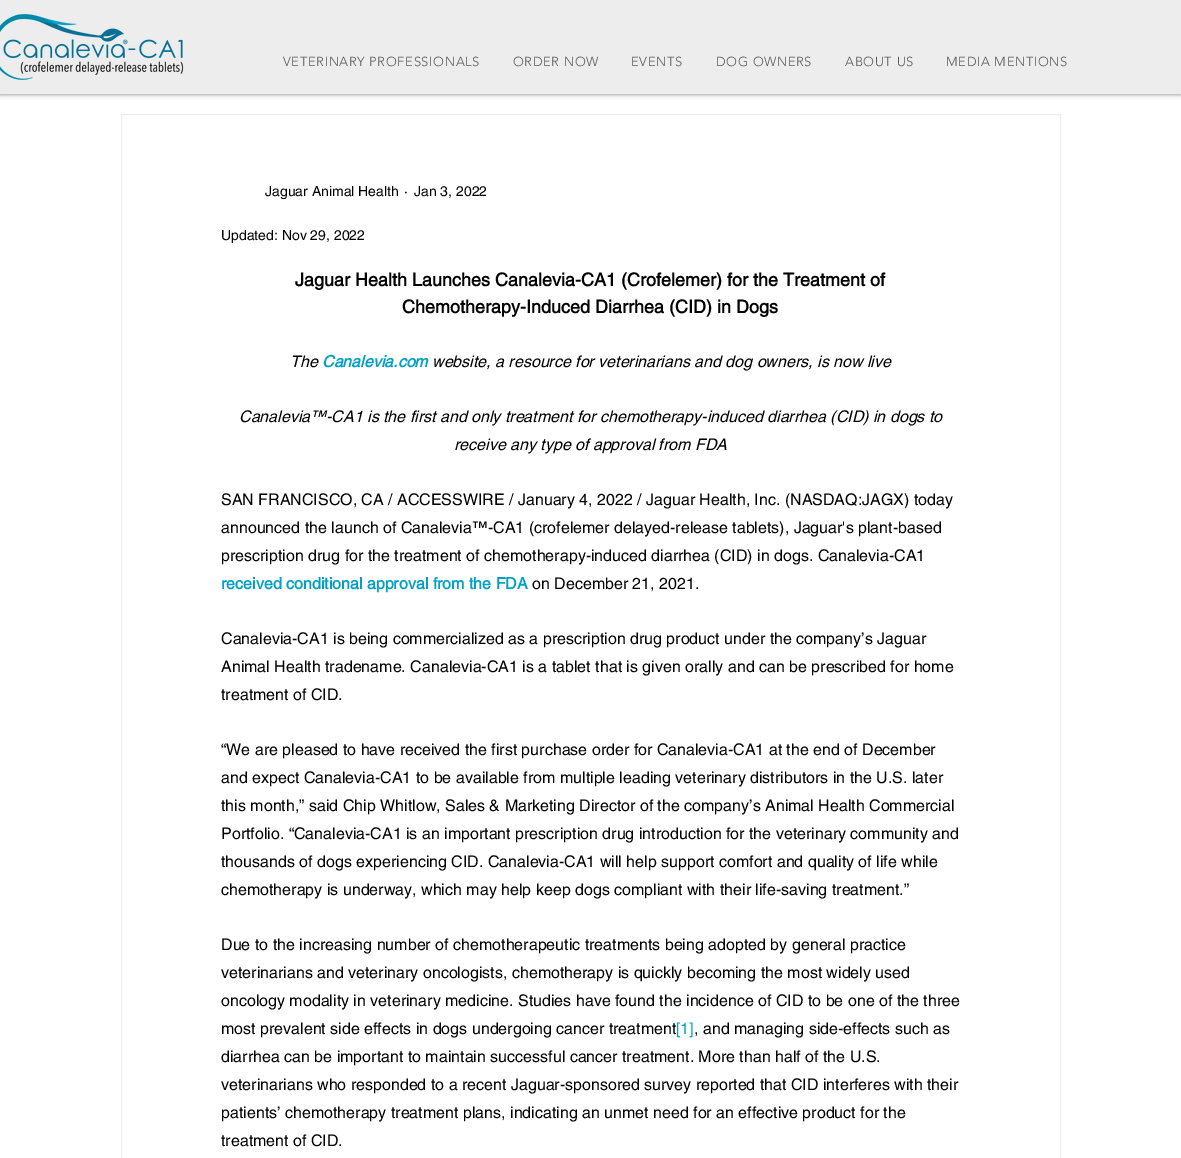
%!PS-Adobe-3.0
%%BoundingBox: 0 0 1181 1158
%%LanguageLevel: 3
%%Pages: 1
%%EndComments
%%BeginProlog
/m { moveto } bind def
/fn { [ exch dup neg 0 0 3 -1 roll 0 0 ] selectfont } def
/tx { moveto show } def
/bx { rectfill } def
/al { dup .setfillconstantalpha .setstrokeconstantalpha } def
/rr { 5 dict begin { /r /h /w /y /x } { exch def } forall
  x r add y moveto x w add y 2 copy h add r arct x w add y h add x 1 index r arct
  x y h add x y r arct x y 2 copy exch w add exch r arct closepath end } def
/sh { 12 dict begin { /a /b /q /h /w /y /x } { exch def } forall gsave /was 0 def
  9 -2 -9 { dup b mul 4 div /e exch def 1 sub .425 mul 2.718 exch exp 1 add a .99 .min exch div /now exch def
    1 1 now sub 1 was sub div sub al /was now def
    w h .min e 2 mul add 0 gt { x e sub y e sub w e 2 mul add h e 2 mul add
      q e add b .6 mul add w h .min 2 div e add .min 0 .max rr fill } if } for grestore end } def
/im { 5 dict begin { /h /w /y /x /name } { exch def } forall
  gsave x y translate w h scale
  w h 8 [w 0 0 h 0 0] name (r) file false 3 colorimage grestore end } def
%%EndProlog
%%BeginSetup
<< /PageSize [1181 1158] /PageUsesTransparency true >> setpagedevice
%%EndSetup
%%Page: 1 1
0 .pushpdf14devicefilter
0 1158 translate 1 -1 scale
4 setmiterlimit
1 setgray
0 0 1181 1158 bx
0 setgray
0 0 1181 94 0 2.5 0.5 sh
0.929 setgray
0 0 1181 94 bx
(image0.raw) 0 13 184 67 im
/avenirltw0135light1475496-Light 13 fn
0.349 setgray
283 66 m 0.65 0 (VETERINARY PROFESSIONALS) ashow
513 66 m 0.65 0 (ORDER NOW) ashow
631 66 m 0.65 0 (EVENTS) ashow
716 66 m 0.65 0 (DOG OWNERS) ashow
845 66 m 0.65 0 (ABOUT US) ashow
946 66 m 0.65 0 (MEDIA MENTIONS) ashow
0.933 0.925 0.925 setrgbcolor
121.5 114.5 939 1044 rectstroke
/helvetica-Regular 14 fn
0 setgray
(Jaguar Animal Health) 265 196 tx
(·) 404 196 tx
(Jan 3, 2022) 414 196 tx
(Updated: Nov 29, 2022) 221 240 tx
/helvetica-Bold 18 fn
(Jaguar Health Launches Canalevia-CA1 \(Crofelemer\) for the Treatment of) 295 286 tx
(Chemotherapy-Induced Diarrhea \(CID\) in Dogs) 402 313 tx
/helvetica-Italic 16 fn
(The) 290 367 tx
/helvetica-BoldItalic 16 fn
0 0.635 0.765 setrgbcolor
(Canalevia.com) 322 367 tx
/helvetica-Italic 16 fn
0 setgray
(website, a resource for veterinarians and dog owners, is now live) 432 367 tx
(Canalevia™-CA1 is the first and only treatment for chemotherapy-induced diarrhea \(CID\) in dogs to) 239 422 tx
(receive any type of approval from FDA) 454 450 tx
/helvetica-Regular 16 fn
(SAN FRANCISCO, CA / ACCESSWIRE / January 4, 2022 / Jaguar Health, Inc. \(NASDAQ:JAGX\) today) 221 505 tx
(announced the launch of Canalevia™-CA1 \(crofelemer delayed-release tablets\), Jaguar's plant-based) 221 533 tx
(prescription drug for the treatment of chemotherapy-induced diarrhea \(CID\) in dogs. Canalevia-CA1) 221 561 tx
/helvetica-Bold 16 fn
0 0.635 0.765 setrgbcolor
(received conditional approval from the FDA) 221 589 tx
/helvetica-Regular 16 fn
0 setgray
(on December 21, 2021.) 532 589 tx
(Canalevia-CA1 is being commercialized as a prescription drug product under the company’s Jaguar) 221 644 tx
(Animal Health tradename. Canalevia-CA1 is a tablet that is given orally and can be prescribed for home) 221 672 tx
(treatment of CID.) 221 700 tx
(“We are pleased to have received the first purchase order for Canalevia-CA1 at the end of December) 221 755 tx
(and expect Canalevia-CA1 to be available from multiple leading veterinary distributors in the U.S. later) 221 783 tx
(this month,” said Chip Whitlow, Sales & Marketing Director of the company’s Animal Health Commercial) 221 811 tx
(Portfolio. “Canalevia-CA1 is an important prescription drug introduction for the veterinary community and) 221 839 tx
(thousands of dogs experiencing CID. Canalevia-CA1 will help support comfort and quality of life while) 221 867 tx
(chemotherapy is underway, which may help keep dogs compliant with their life-saving treatment.”) 221 895 tx
(Due to the increasing number of chemotherapeutic treatments being adopted by general practice) 221 950 tx
(veterinarians and veterinary oncologists, chemotherapy is quickly becoming the most widely used) 221 978 tx
(oncology modality in veterinary medicine. Studies have found the incidence of CID to be one of the three) 221 1006 tx
(most prevalent side effects in dogs undergoing cancer treatment) 221 1034 tx
0 0.635 0.765 setrgbcolor
([1]) 676 1034 tx
0 setgray
(, and managing side-effects such as) 694 1034 tx
(diarrhea can be important to maintain successful cancer treatment. More than half of the U.S.) 221 1062 tx
(veterinarians who responded to a recent Jaguar-sponsored survey reported that CID interferes with their) 221 1090 tx
(patients’ chemotherapy treatment plans, indicating an unmet need for an effective product for the) 221 1118 tx
(treatment of CID.) 221 1146 tx
.poppdf14devicefilter showpage
%%EOF
